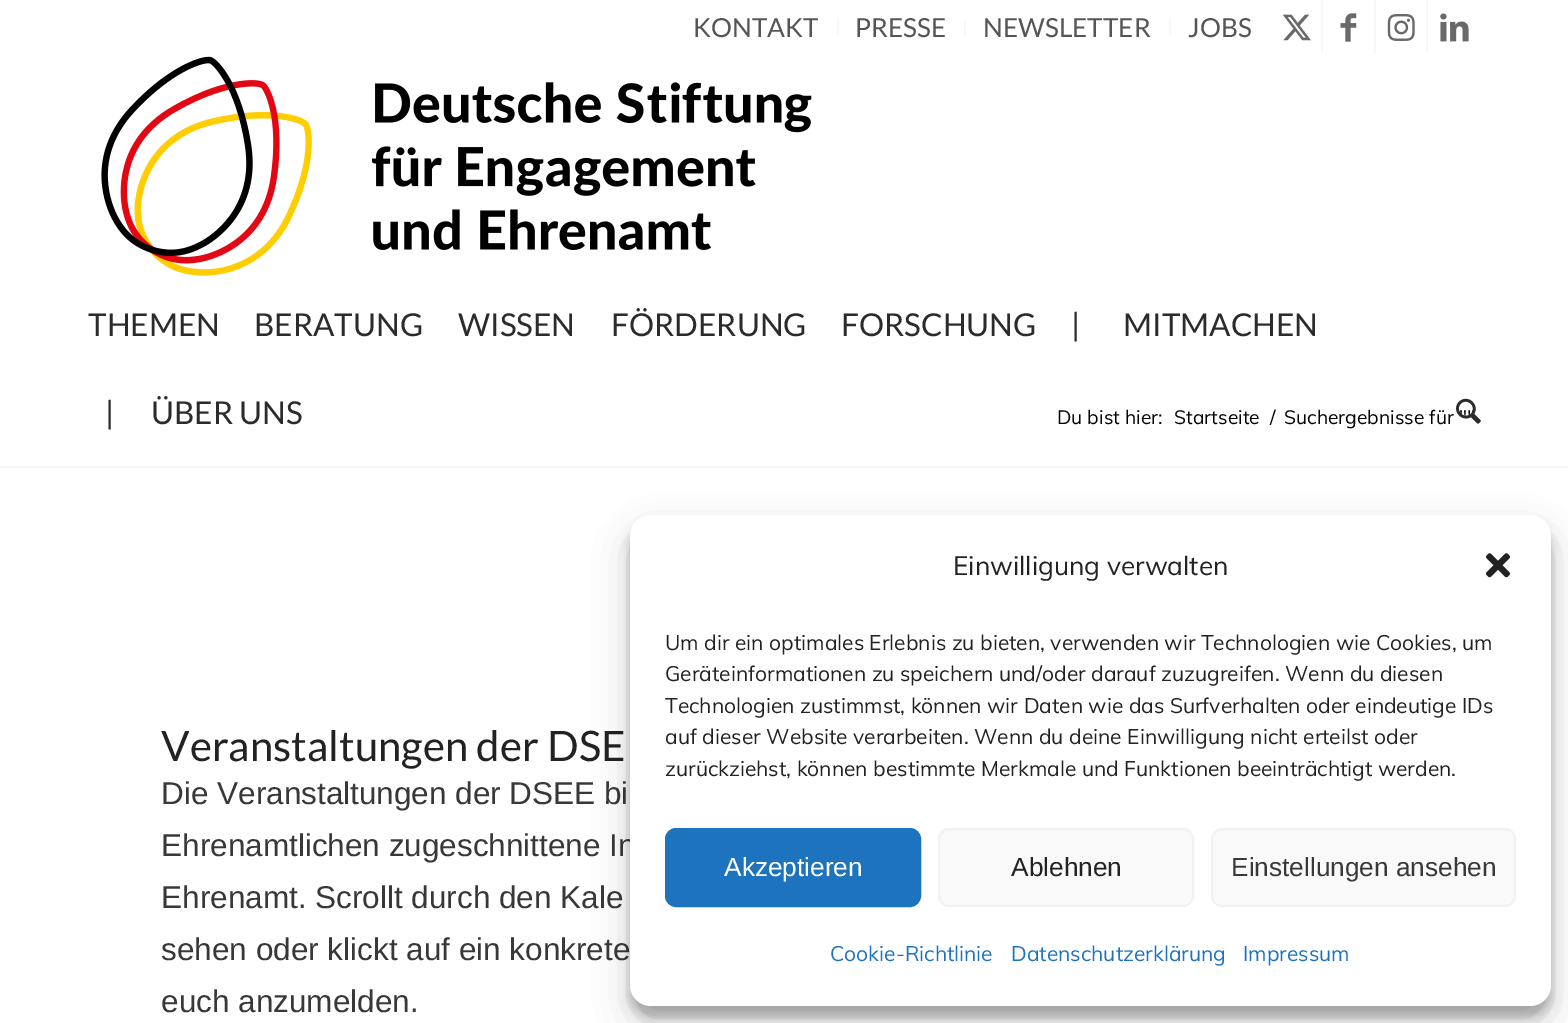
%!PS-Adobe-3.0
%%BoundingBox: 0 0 1568 1023
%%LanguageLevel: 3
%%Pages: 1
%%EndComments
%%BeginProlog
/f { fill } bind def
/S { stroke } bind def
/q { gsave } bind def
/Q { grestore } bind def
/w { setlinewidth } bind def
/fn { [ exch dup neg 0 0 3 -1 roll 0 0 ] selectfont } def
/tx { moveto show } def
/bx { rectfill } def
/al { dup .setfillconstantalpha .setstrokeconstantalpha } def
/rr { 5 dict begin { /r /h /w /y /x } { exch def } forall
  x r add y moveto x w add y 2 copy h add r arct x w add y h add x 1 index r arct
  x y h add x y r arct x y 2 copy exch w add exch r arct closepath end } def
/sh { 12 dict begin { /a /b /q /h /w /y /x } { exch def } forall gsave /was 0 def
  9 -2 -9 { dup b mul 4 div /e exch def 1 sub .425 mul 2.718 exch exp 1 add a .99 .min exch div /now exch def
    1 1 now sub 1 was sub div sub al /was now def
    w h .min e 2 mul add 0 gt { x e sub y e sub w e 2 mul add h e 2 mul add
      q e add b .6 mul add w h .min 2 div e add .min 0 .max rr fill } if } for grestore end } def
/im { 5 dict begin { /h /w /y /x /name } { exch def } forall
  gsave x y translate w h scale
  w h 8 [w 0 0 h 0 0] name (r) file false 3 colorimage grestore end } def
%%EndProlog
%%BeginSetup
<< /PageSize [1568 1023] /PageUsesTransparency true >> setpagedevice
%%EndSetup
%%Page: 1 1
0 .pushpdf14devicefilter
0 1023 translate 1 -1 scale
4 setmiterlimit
1 setgray
0 0 1568 1023 bx
0.973 setgray
837 18 2 17 bx
/Lato-Regular 26.25 fn
0.333 setgray
(KONTAKT) 693 37 tx
0.973 setgray
964 18 2 17 bx
0.333 setgray
(PRESSE) 855 37 tx
0.973 setgray
1169 18 2 17 bx
0.333 setgray
(NEWSLETTER) 983 37 tx
(JOBS) 1188 37 tx
0.973 setgray
1321 0 2 53 bx
(image0.raw) 1282 14 29 27 im
1374 0 2 53 bx
(image1.raw) 1340 13 17 29 im
1426 0 2 53 bx
(image2.raw) 1387 13 28 28 im
(image3.raw) 1440 13 29 29 im
(image4.raw) 101 56 711 220 im
/Lato-Regular 31.5 fn
0.169 setgray
(THEMEN) 88 336 tx
(BERATUNG) 254 336 tx
(WISSEN) 458 336 tx
(FÖRDERUNG) 611 336 tx
(FORSCHUNG) 841 336 tx
(|       MITMACHEN) 1071 336 tx
(|      ÜBER UNS) 105 424 tx
/Mulish-Regular 19.25 fn
0 setgray
(Suchergebnisse für ") 1284 424 tx
(image5.raw) 1456 398 25 26 im
(Du bist hier:) 1057 424 tx
(Startseite) 1174 424 tx
(/) 1270 424 tx
0.973 setgray
0 466 1568 2 bx
/Lato-Regular 42 fn
0.133 setgray
(Veranstaltungen der DSE) 161 761 tx
/LiberationSans-Regular 31.5 fn
0.22 setgray
(Die Veranstaltungen der DSEE bi) 161 804 tx
(Ehrenamtlichen zugeschnittene In) 161 856 tx
(Ehrenamt. Scrollt durch den Kale) 161 908 tx
(sehen oder klickt auf ein konkrete) 161 960 tx
(euch anzumelden.) 161 1012 tx
0 setgray
630 525 921 492 21 5 0.23 sh
630 532 921 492 21 17.5 0.19 sh
1 setgray
630 515 921 491 21 rr f
/Mulish-Regular 26.25 fn
0.133 setgray
(Einwilligung verwalten) 953 575 tx
(image6.raw) 1486 553 24 25 im
/Mulish-Regular 21 fn
(Um dir ein optimales Erlebnis zu bieten, verwenden wir Technologien wie Cookies, um) 665 650 tx
(Geräteinformationen zu speichern und/oder darauf zuzugreifen. Wenn du diesen) 665 681 tx
(Technologien zustimmst, können wir Daten wie das Surfverhalten oder eindeutige IDs) 665 713 tx
(auf dieser Website verarbeiten. Wenn du deine Einwilligung nicht erteilst oder) 665 744 tx
(zurückziehst, können bestimmte Merkmale und Funktionen beeinträchtigt werden.) 665 776 tx
0.118 0.451 0.745 setrgbcolor
666 829 254 77 10 rr q f Q
2 w
S
/LiberationSans-Regular 26.25 fn
1 setgray
(Akzeptieren) 724 876 tx
0.976 setgray
939 829 254 77 10 rr q f Q
0.949 setgray
S
0.133 setgray
(Ablehnen) 1011 876 tx
0.976 setgray
1212 829 303 77 10 rr q f Q
0.949 setgray
S
0.22 setgray
(Einstellungen ansehen) 1231 876 tx
/Mulish-Regular 21 fn
0.118 0.451 0.745 setrgbcolor
(Cookie-Richtlinie) 830 961 tx
(Datenschutzerklärung) 1011 961 tx
(Impressum) 1243 961 tx
.poppdf14devicefilter showpage
%%EOF
